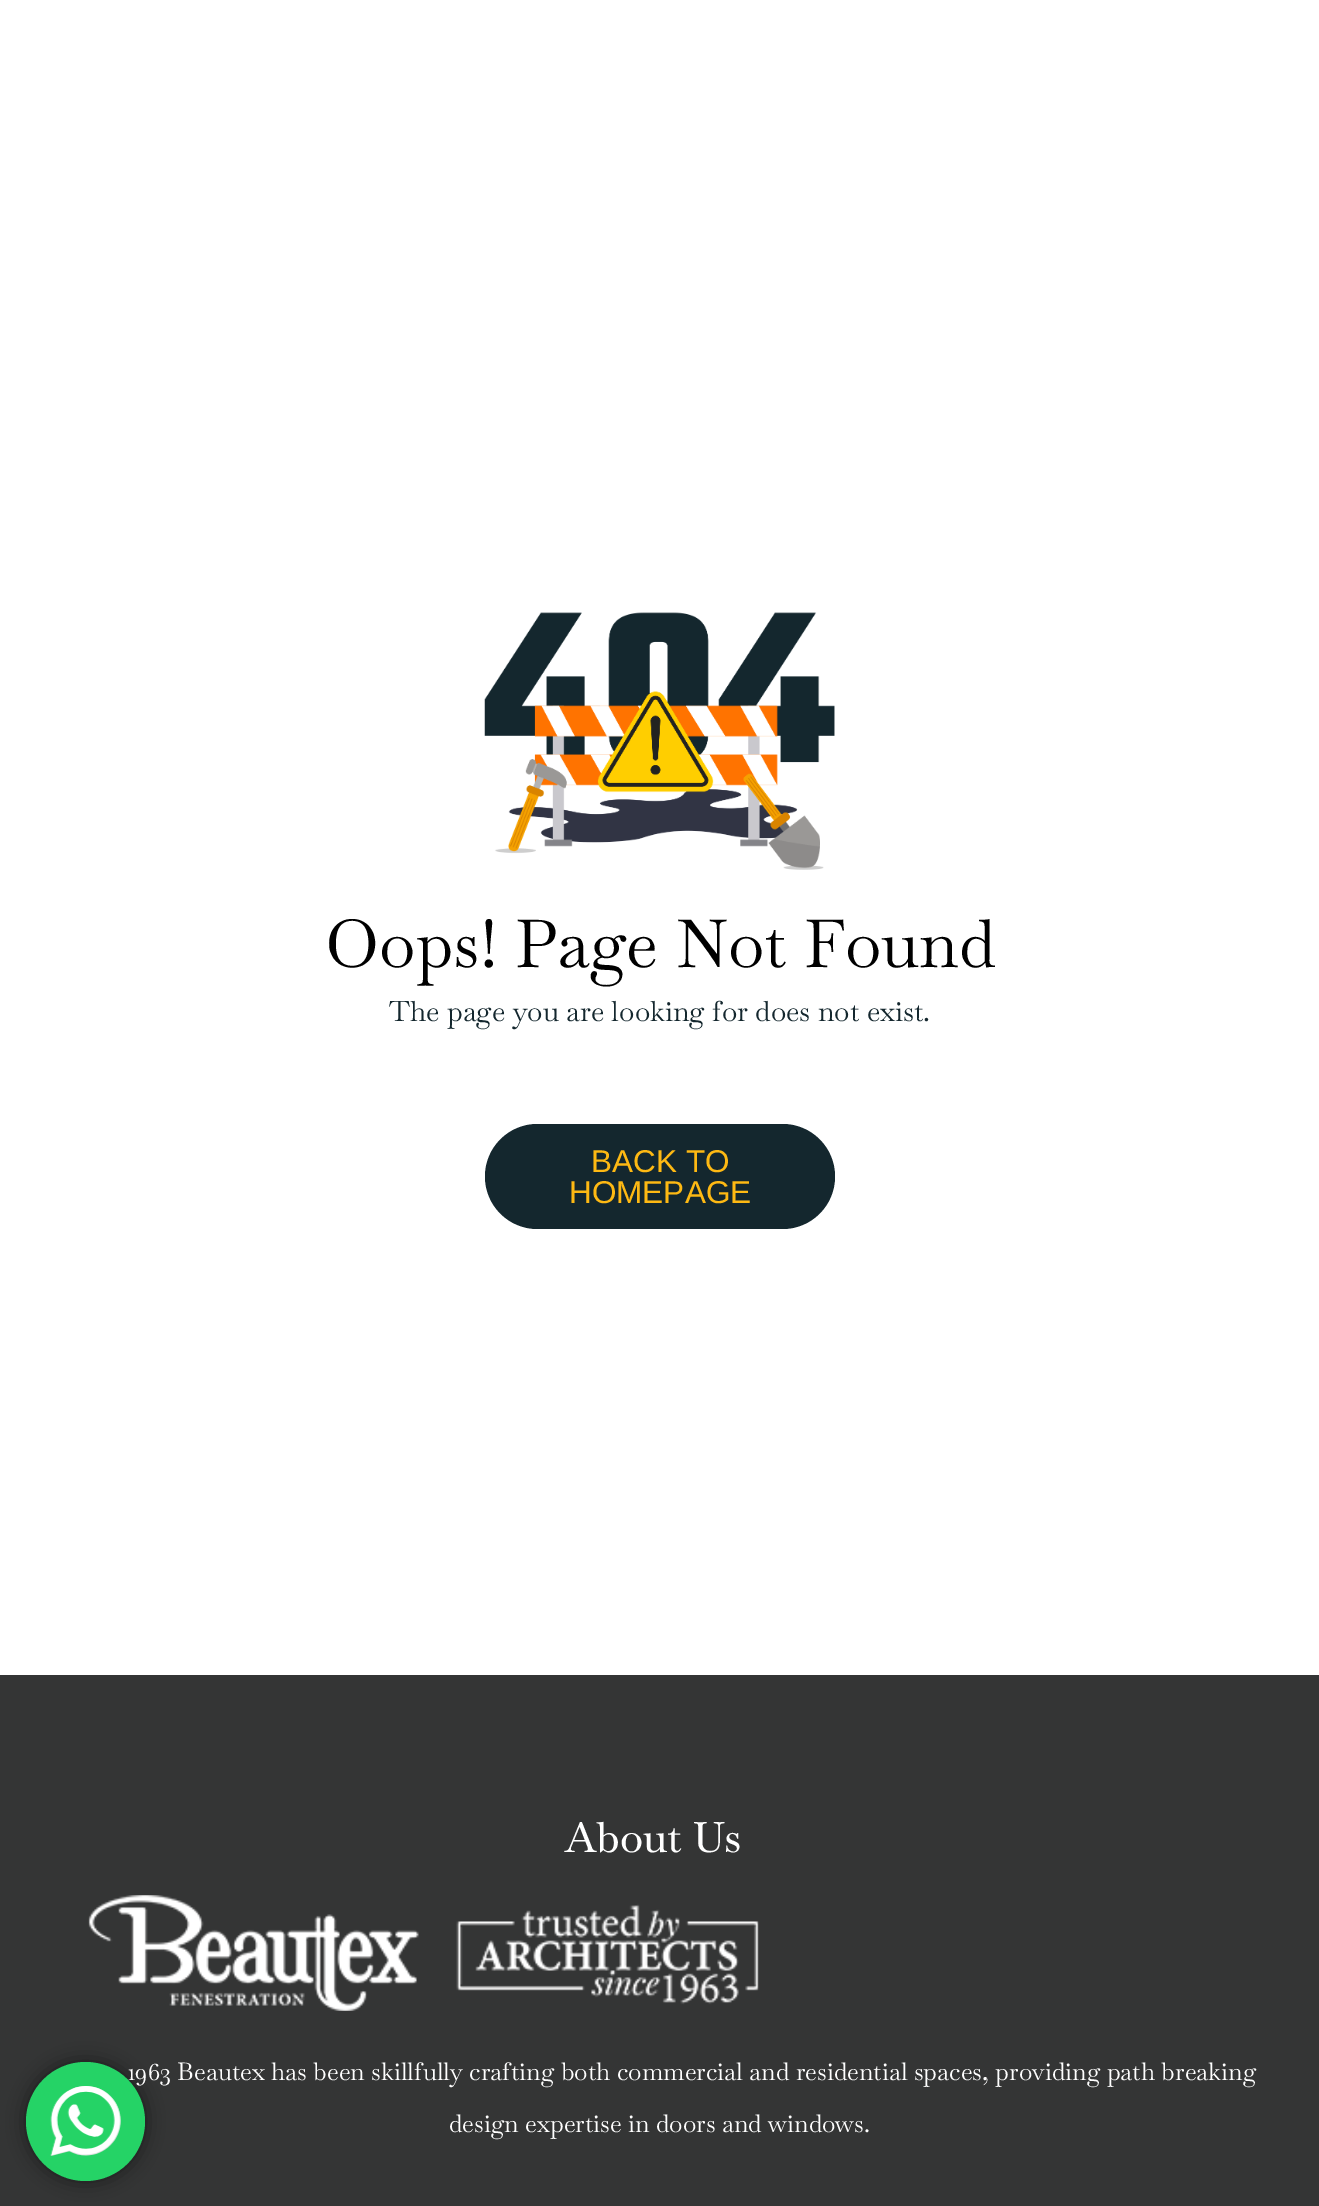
%!PS-Adobe-3.0
%%BoundingBox: 0 0 1319 2206
%%LanguageLevel: 3
%%Pages: 1
%%EndComments
%%BeginProlog
/f { fill } bind def
/fn { [ exch dup neg 0 0 3 -1 roll 0 0 ] selectfont } def
/tx { moveto show } def
/bx { rectfill } def
/al { dup .setfillconstantalpha .setstrokeconstantalpha } def
/ci { newpath 0 360 arc closepath } def
/rr { 5 dict begin { /r /h /w /y /x } { exch def } forall
  x r add y moveto x w add y 2 copy h add r arct x w add y h add x 1 index r arct
  x y h add x y r arct x y 2 copy exch w add exch r arct closepath end } def
/sh { 12 dict begin { /a /b /q /h /w /y /x } { exch def } forall gsave /was 0 def
  9 -2 -9 { dup b mul 4 div /e exch def 1 sub .425 mul 2.718 exch exp 1 add a .99 .min exch div /now exch def
    1 1 now sub 1 was sub div sub al /was now def
    w h .min e 2 mul add 0 gt { x e sub y e sub w e 2 mul add h e 2 mul add
      q e add b .6 mul add w h .min 2 div e add .min 0 .max rr fill } if } for grestore end } def
/im { 5 dict begin { /h /w /y /x /name } { exch def } forall
  gsave x y translate w h scale
  w h 8 [w 0 0 h 0 0] name (r) file false 3 colorimage grestore end } def
%%EndProlog
%%BeginSetup
<< /PageSize [1319 2206] /PageUsesTransparency true >> setpagedevice
%%EndSetup
%%Page: 1 1
0 .pushpdf14devicefilter
0 2206 translate 1 -1 scale
4 setmiterlimit
1 setgray
0 0 1319 2206 bx
0.204 0.208 0.208 setrgbcolor
0 1675 1319 531 bx
0 setgray
26 2062 119 119 59.5 9.5 0.5 sh
/Baskervville-Regular 24.5 fn
1 setgray
(1963 Beautex has been skillfully crafting both commercial and residential spaces, providing path breaking) 128 2080 tx
0.145 0.827 0.4 setrgbcolor
85.5 2121.5 59.5 ci f
(image0.raw) 50 2086 71 70 im
(image1.raw) 484 612 351 258 im
/Baskervville-Regular 66.5 fn
0 setgray
(Oops! Page Not Found) 325 967 tx
/Baskervville-Regular 28 fn
0.078 0.153 0.18 setrgbcolor
(The page you are looking for does not exist.) 389 1021 tx
485 1124 350 105 52.5 rr f
/LiberationSans-Regular 31.5 fn
0.996 0.725 0.075 setrgbcolor
(BACK TO) 591 1172 tx
(HOMEPAGE) 569 1203 tx
/Baskervville-Medium 42 fn
1 setgray
(About Us) 565 1852 tx
(image2.raw) 88 1895 671 116 im
/Baskervville-Regular 24.5 fn
(design expertise in doors and windows.) 449 2132 tx
.poppdf14devicefilter showpage
%%EOF
